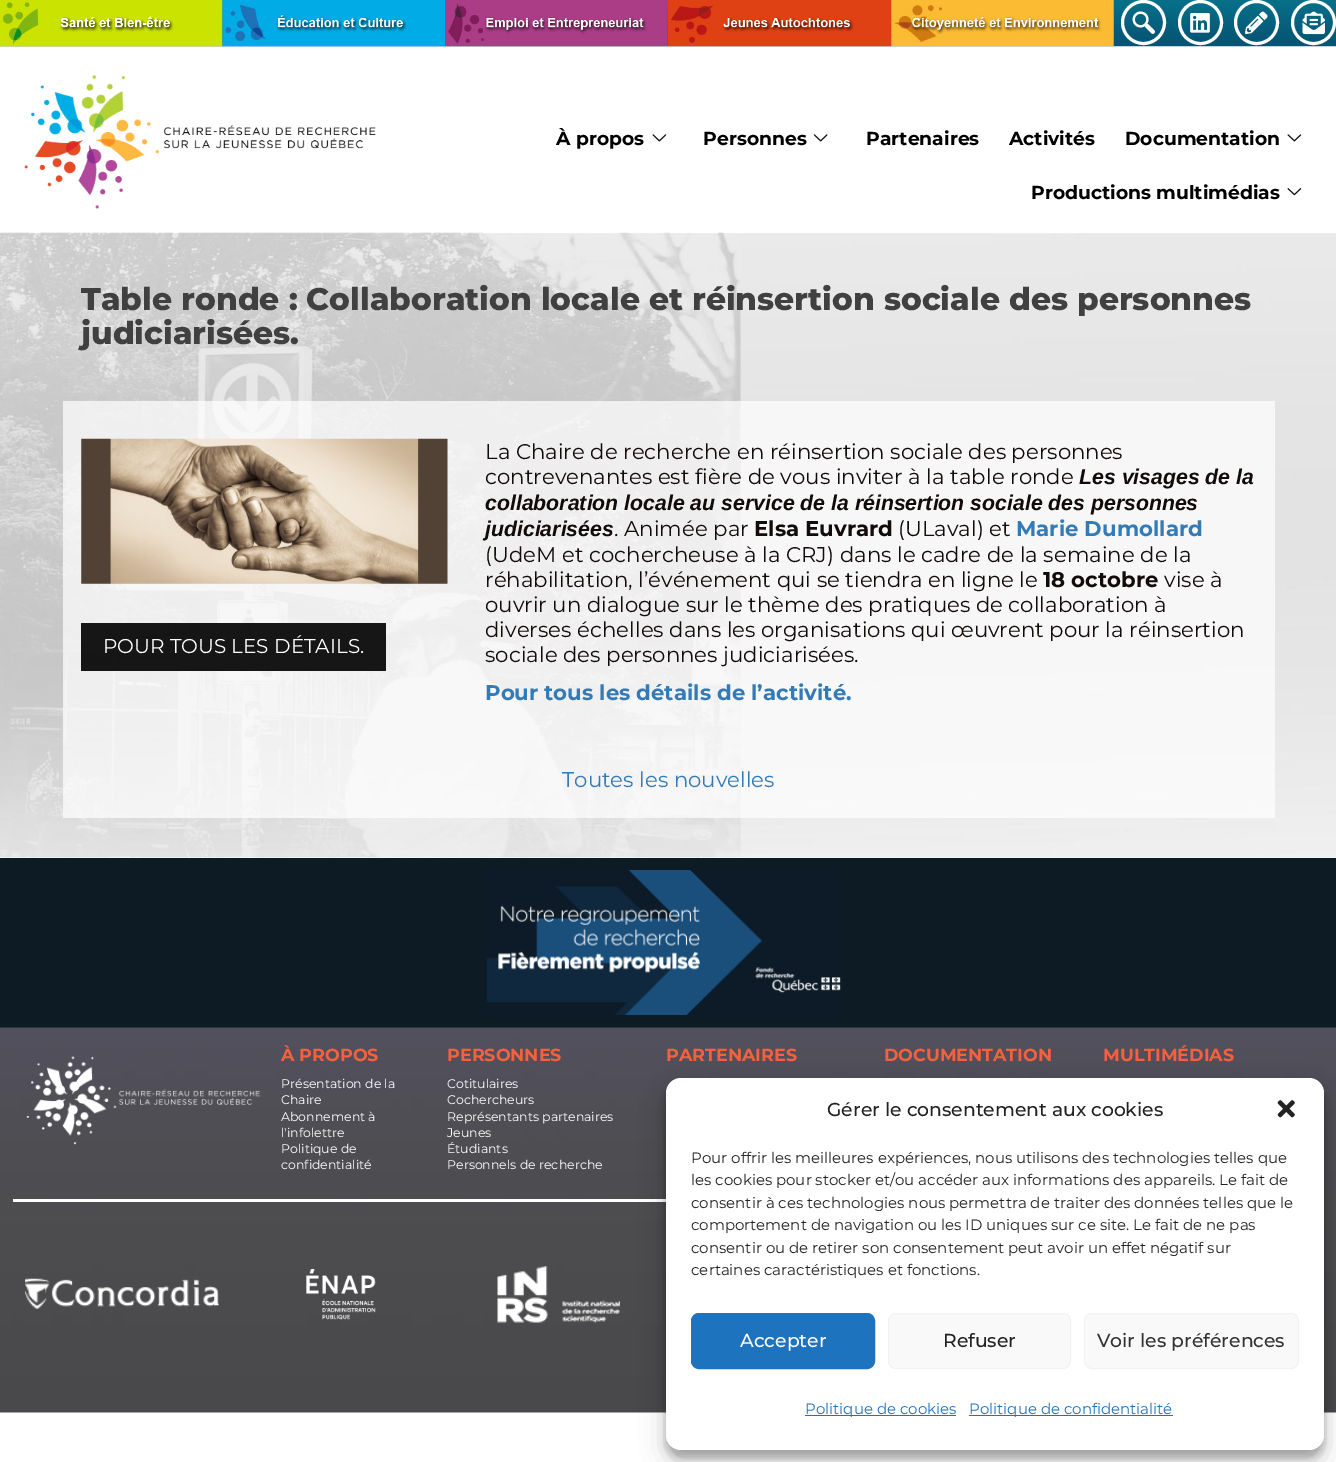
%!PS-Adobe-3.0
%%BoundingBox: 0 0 1336 1462
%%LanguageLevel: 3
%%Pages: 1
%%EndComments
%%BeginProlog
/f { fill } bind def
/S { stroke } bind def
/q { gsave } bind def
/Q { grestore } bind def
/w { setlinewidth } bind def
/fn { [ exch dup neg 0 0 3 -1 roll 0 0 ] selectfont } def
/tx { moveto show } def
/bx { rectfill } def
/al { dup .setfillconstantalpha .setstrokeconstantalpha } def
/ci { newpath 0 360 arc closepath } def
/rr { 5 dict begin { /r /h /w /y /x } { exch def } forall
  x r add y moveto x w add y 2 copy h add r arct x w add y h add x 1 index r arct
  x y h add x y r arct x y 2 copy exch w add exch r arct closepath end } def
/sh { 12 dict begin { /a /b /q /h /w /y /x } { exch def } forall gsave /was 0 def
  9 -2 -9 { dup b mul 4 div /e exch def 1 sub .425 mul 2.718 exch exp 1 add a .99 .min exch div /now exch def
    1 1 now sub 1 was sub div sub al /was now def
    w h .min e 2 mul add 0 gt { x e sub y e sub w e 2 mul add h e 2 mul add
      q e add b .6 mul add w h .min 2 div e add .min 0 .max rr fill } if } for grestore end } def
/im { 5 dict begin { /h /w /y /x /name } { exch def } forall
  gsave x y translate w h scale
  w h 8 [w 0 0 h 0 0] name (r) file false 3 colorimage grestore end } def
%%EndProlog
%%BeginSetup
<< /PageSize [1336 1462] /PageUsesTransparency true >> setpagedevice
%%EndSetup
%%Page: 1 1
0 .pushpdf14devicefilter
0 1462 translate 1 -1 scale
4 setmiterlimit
1 setgray
0 0 1336 1462 bx
(image0.raw) 0 0 1336 47 im
(image1.raw) 0 0 223 47 im
(image2.raw) 222 0 223 47 im
(image3.raw) 445 0 223 47 im
(image4.raw) 667 0 225 47 im
(image5.raw) 891 0 223 47 im
3 w
1143.5 22.5 21 ci S
(image6.raw) 1132 11 23 23 im
1200.5 22.5 21 ci S
(image7.raw) 1190 13 20 20 im
1256.5 22.5 21 ci S
(image8.raw) 1245 11 23 24 im
1313.5 22.5 21 ci S
(image9.raw) 1302 11 23 24 im
(image10.raw) 24 75 352 134 im
/Montserrat-Bold 18.75 fn
0 setgray
(À propos) 556 145 tx
(image11.raw) 652 134 15 8 im
(Personnes) 703 145 tx
(image12.raw) 813 134 15 8 im
(Partenaires) 866 145 tx
(Activités) 1009 145 tx
(Documentation) 1125 145 tx
(image11.raw) 1287 134 15 8 im
(Productions multimédias) 1031 199 tx
(image13.raw) 1287 188 15 8 im
(image14.raw) 0 232 1336 626 im
/Montserrat-ExtraBold 31.25 fn
0.251 setgray
(Table ronde : Collaboration locale et réinsertion sociale des personnes) 81 310 tx
(judiciarisées.) 81 344 tx
0.7 al
1 setgray
63 401 1212 417 bx
1 al
(image15.raw) 81 438 367 146 im
0.91 al
0 setgray
81 623 305 48 bx
/Montserrat-Regular 20 fn
1 al
1 setgray
(POUR TOUS LES DÉTAILS.) 103 653 tx
/Montserrat-Regular 21.25 fn
0.075 0.039 0.039 setrgbcolor
(La Chaire de recherche en réinsertion sociale des personnes) 485 459 tx
(contrevenantes est fière de vous inviter à la table ronde) 485 484 tx
/LiberationSans-BoldItalic 21.25 fn
(Les visages de la) 1079 484 tx
(collaboration locale au service de la réinsertion sociale des personnes) 485 510 tx
(judiciarisées) 485 536 tx
/Montserrat-Regular 21.25 fn
(. Animée par) 614 536 tx
/Montserrat-Bold 21.25 fn
(Elsa Euvrard) 754 536 tx
/Montserrat-Regular 21.25 fn
(\(ULaval\) et) 898 536 tx
/Montserrat-Bold 21.25 fn
0.2 0.478 0.718 setrgbcolor
(Marie Dumollard) 1016 536 tx
/Montserrat-Regular 21.25 fn
0.075 0.039 0.039 setrgbcolor
(\(UdeM et cochercheuse à la CRJ\) dans le cadre de la semaine de la) 485 562 tx
(réhabilitation, l’événement qui se tiendra en ligne le) 485 587 tx
/Montserrat-Bold 21.25 fn
(18 octobre) 1043 587 tx
/Montserrat-Regular 21.25 fn
(vise à) 1164 587 tx
(ouvrir un dialogue sur le thème des pratiques de collaboration à) 485 612 tx
(diverses échelles dans les organisations qui œuvrent pour la réinsertion) 485 637 tx
(sociale des personnes judiciarisées.) 485 662 tx
/Montserrat-Bold 21.25 fn
0.2 0.478 0.718 setrgbcolor
(Pour tous les détails de l’activité.) 485 700 tx
/Montserrat-Regular 21.25 fn
(Toutes les nouvelles) 562 787 tx
0.051 0.106 0.145 setrgbcolor
0 858 1336 170 bx
(image16.raw) 486 870 355 145 im
(image17.raw) 0 1027 1336 386 im
(image18.raw) 26 1056 235 89 im
/Montserrat-Bold 17.5 fn
0.969 0.376 0.239 setrgbcolor
(À PROPOS) 281 1061 tx
/Montserrat-Regular 12.5 fn
1 setgray
(Présentation de la) 281 1088 tx
(Chaire) 281 1104 tx
(Abonnement à) 281 1121 tx
(l'infolettre) 281 1137 tx
(Politique de) 281 1153 tx
(confidentialité) 281 1169 tx
/Montserrat-Bold 17.5 fn
0.969 0.376 0.239 setrgbcolor
(PERSONNES) 447 1061 tx
/Montserrat-Regular 12.5 fn
1 setgray
(Cotitulaires) 447 1088 tx
(Cochercheurs) 447 1104 tx
(Représentants partenaires) 447 1121 tx
(Jeunes) 447 1137 tx
(Étudiants) 447 1153 tx
(Personnels de recherche) 447 1169 tx
/Montserrat-Bold 17.5 fn
0.969 0.376 0.239 setrgbcolor
(PARTENAIRES) 666 1061 tx
(DOCUMENTATION) 884 1061 tx
(MULTIMÉDIAS) 1103 1061 tx
1 setgray
13 1199 653 3 bx
(image19.raw) 25 1278 194 31 im
(image20.raw) 306 1269 70 51 im
(image21.raw) 497 1266 123 57 im
0 setgray
666 1085 658 373 15 4 0.23 sh
666 1090 658 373 15 12.5 0.19 sh
1 setgray
666 1078 658 372 15 rr f
/Montserrat-Medium 18.75 fn
0.133 setgray
(Gérer le consentement aux cookies) 827 1116 tx
(image22.raw) 1277 1100 18 18 im
/Montserrat-Regular 15 fn
(Pour offrir les meilleures expériences, nous utilisons des technologies telles que) 691 1163 tx
(les cookies pour stocker et/ou accéder aux informations des appareils. Le fait de) 691 1185 tx
(consentir à ces technologies nous permettra de traiter des données telles que le) 691 1208 tx
(comportement de navigation ou les ID uniques sur ce site. Le fait de ne pas) 691 1230 tx
(consentir ou de retirer son consentement peut avoir un effet négatif sur) 691 1253 tx
(certaines caractéristiques et fonctions.) 691 1275 tx
0.118 0.451 0.745 setrgbcolor
691.5 1313.5 183 55 7.5 rr q f Q
1 w
S
/Montserrat-Medium 18.75 fn
1 setgray
(Accepter) 740 1347 tx
0.976 setgray
888.5 1313.5 182 55 7.5 rr q f Q
0.949 setgray
S
0.133 setgray
(Refuser) 943 1347 tx
0.976 setgray
1084.5 1313.5 214 55 7.5 rr q f Q
0.949 setgray
S
0.2 setgray
(Voir les préférences) 1097 1347 tx
0.118 0.451 0.745 setrgbcolor
805 1415 151 1 bx
/Montserrat-Regular 15 fn
(Politique de cookies) 805 1414 tx
969 1415 204 1 bx
(Politique de confidentialité) 969 1414 tx
.poppdf14devicefilter showpage
%%EOF
